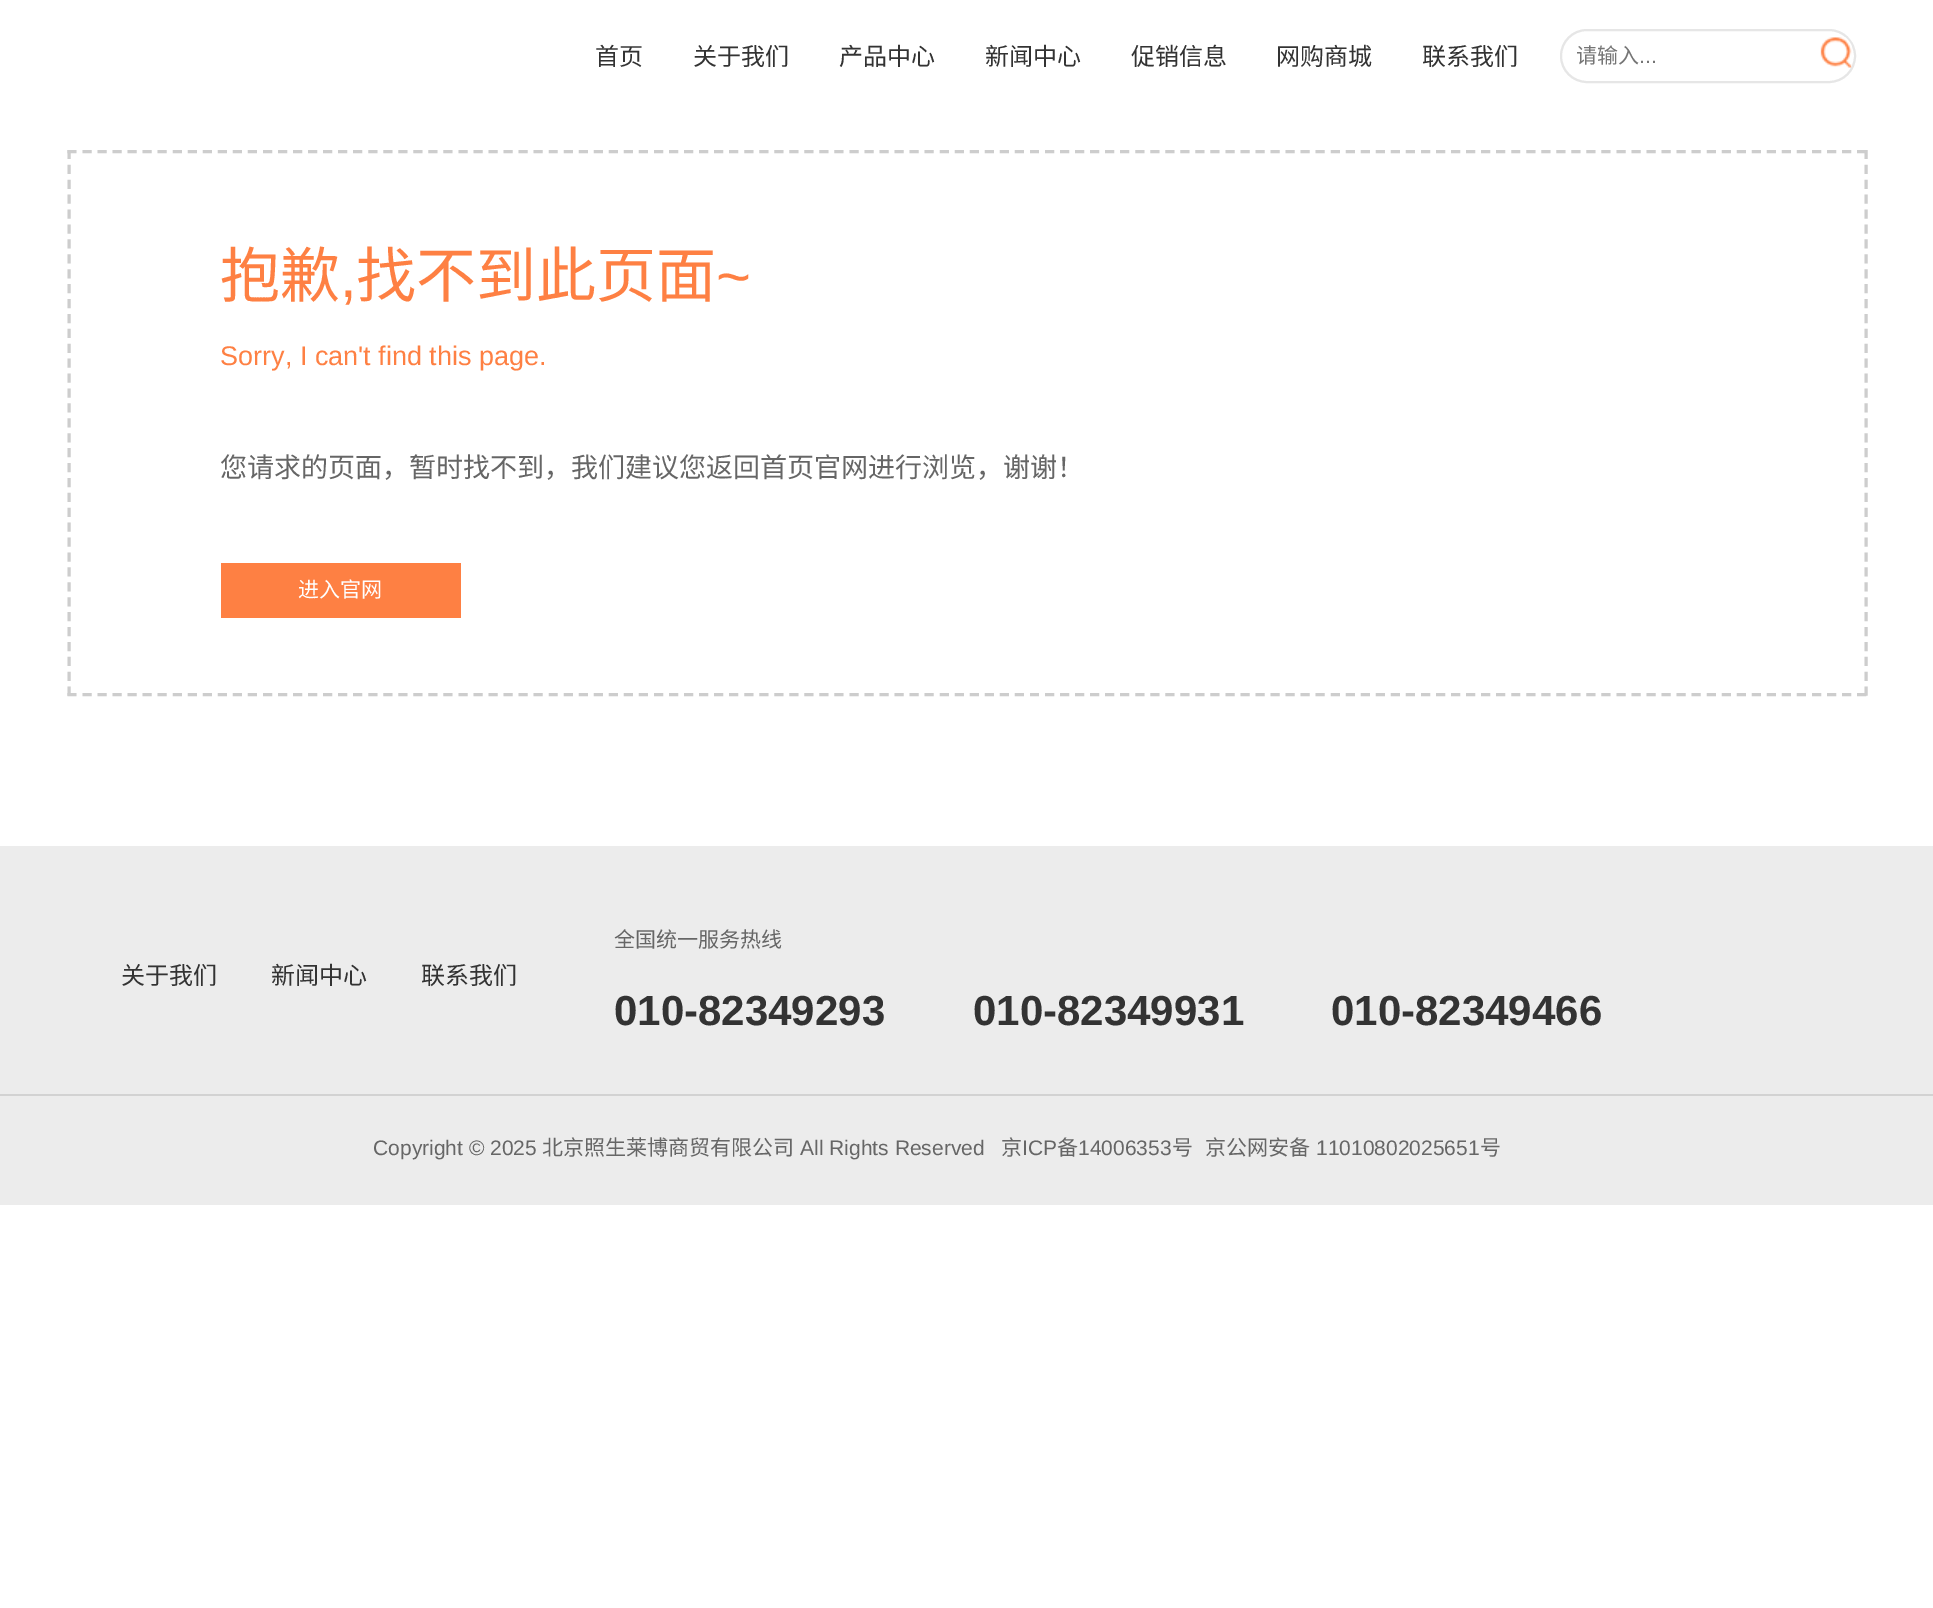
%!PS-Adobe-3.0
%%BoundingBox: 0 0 1933 1608
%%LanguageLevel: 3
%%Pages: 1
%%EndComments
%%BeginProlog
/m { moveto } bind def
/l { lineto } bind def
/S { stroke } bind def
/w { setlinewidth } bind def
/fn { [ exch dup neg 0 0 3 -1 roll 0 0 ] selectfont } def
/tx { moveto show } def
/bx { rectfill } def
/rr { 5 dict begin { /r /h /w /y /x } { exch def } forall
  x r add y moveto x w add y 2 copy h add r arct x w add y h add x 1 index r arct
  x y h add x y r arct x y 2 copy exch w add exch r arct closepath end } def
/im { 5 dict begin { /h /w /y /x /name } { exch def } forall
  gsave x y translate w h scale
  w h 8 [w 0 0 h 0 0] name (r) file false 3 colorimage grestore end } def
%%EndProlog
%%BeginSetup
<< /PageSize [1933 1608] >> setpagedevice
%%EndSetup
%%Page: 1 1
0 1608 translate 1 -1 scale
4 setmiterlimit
1 setgray
0 0 1933 1608 bx
/NotoSansCJKSC-Regular 24 fn
0.2 setgray
(首页) 595 65 tx
(关于我们) 693 65 tx
(产品中心) 839 65 tx
(新闻中心) 985 65 tx
(促销信息) 1131 65 tx
(网购商城) 1276 65 tx
(联系我们) 1422 65 tx
0.902 setgray
2 w
1561 30 294 52 26 rr S
/NotoSansCJKSC-Regular 21 fn
0.459 setgray
(请输入) 1576 63 tx
/LiberationSans-Regular 21 fn
(...) 1639 63 tx
(image0.raw) 1820 37 32 31 im
0.804 setgray
3 w
[9 6.04] 0 setdash
67.5 151.5 m 1867.5 151.5 l S
[9 5.91] 0 setdash
1866 150 m 1866 696 l S
[9 6.04] 0 setdash
67.5 694.5 m 1867.5 694.5 l S
[9 5.91] 0 setdash
69 150 m 69 696 l S
/NotoSansCJKSC-Regular 60 fn
0.996 0.502 0.263 setrgbcolor
(抱歉) 220 297 tx
(找不到此页面) 356 297 tx
/LiberationSans-Regular 60 fn
(~) 716 297 tx
(,) 340 297 tx
/LiberationSans-Regular 27 fn
(Sorry, I can't find this page.) 220 365 tx
/NotoSansCJKSC-Regular 27 fn
0.4 setgray
(您请求的页面，暂时找不到，我们建议您返回首页官网进行浏览，谢谢！) 220 477 tx
0.996 0.502 0.263 setrgbcolor
221 563 240 55 bx
/NotoSansCJKSC-Regular 21 fn
1 setgray
(进入官网) 298 597 tx
0.925 setgray
0 846 1933 248 bx
/NotoSansCJKSC-Regular 24 fn
0.2 setgray
(关于我们) 121 984 tx
(新闻中心) 271 984 tx
(联系我们) 421 984 tx
/NotoSansCJKSC-Regular 21 fn
0.4 setgray
(全国统一服务热线) 614 947 tx
/LiberationSans-Bold 42 fn
0.2 setgray
(010-82349293) 614 1025 tx
(010-82349931) 973 1025 tx
(010-82349466) 1331 1025 tx
0.925 setgray
0 1096 1933 109 bx
0.824 setgray
0 1094 1933 2 bx
/LiberationSans-Regular 21 fn
0.4 setgray
(Copyright © 2025) 373 1155 tx
/NotoSansCJKSC-Regular 21 fn
(北京照生莱博商贸有限公司) 542 1155 tx
/LiberationSans-Regular 21 fn
(All Rights Reserved) 800 1155 tx
/NotoSansCJKSC-Regular 21 fn
(京) 1001 1155 tx
/LiberationSans-Regular 21 fn
(ICP) 1022 1155 tx
/NotoSansCJKSC-Regular 21 fn
(备) 1057 1155 tx
/LiberationSans-Regular 21 fn
(14006353) 1078 1155 tx
/NotoSansCJKSC-Regular 21 fn
(号) 1172 1155 tx
(京公网安备) 1205 1155 tx
/LiberationSans-Regular 21 fn
(11010802025651) 1316 1155 tx
/NotoSansCJKSC-Regular 21 fn
(号) 1480 1155 tx
showpage
%%EOF
